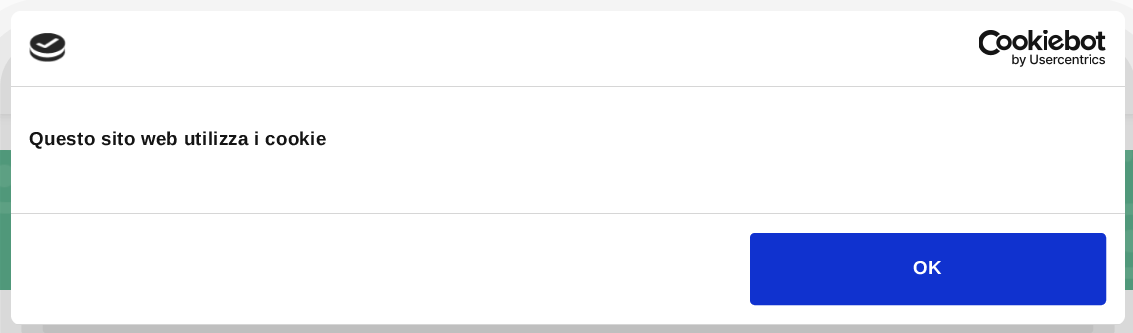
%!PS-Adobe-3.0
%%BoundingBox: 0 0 1133 333
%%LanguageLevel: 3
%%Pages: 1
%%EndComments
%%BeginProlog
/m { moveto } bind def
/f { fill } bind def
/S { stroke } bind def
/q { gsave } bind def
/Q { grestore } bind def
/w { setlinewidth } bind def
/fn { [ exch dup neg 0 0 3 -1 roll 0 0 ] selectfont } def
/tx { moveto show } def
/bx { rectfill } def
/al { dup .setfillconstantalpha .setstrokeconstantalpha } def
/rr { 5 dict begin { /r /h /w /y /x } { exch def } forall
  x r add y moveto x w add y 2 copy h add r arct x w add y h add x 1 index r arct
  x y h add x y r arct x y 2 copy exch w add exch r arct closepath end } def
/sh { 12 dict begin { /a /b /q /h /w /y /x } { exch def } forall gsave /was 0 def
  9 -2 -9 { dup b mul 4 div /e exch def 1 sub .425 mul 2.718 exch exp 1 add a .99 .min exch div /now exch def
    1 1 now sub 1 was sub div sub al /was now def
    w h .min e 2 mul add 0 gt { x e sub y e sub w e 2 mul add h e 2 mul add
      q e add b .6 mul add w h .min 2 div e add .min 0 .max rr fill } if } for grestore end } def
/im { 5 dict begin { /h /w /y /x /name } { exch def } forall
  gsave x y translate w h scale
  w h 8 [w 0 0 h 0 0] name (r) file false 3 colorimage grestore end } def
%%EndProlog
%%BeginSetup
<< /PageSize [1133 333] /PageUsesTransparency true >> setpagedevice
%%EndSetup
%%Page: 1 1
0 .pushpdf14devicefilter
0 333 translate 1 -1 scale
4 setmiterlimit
1 setgray
0 0 1133 333 bx
0 setgray
0 0 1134 114 0 6 0.1 sh
1 setgray
0 0 1133 114 bx
0.369 0.698 0.561 setrgbcolor
0 150 1133 140 bx
(image2.raw) 0 150 1133 129 im
0 setgray
11 51 1114 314 10 42.5 0.3 sh
1 setgray
11 11 1114 314 10 rr f
0.839 setgray
11 86 1114 1 bx
(image0.raw) 29 33 37 29 im
(image1.raw) 979 30 127 37 im
11 213 1114 1 bx
/LiberationSans-Bold 18.75 fn
0.078 setgray
29 145 m 0.3 0 (Questo sito web utilizza i cookie) ashow
q
11 11 1114 314 10 rr clip newpath
0.839 setgray
11 324 1114 1 bx
Q
0.063 0.196 0.812 setrgbcolor
751.5 234.5 353 69 3.5 rr q f Q
3 w
S
1 setgray
(OK) 913 274 tx
.poppdf14devicefilter showpage
%%EOF
